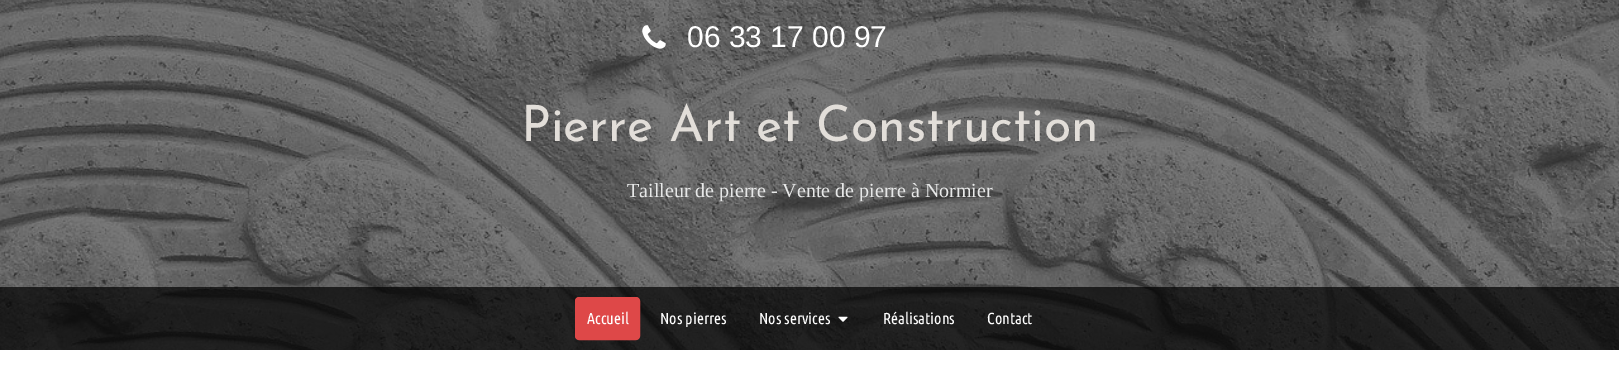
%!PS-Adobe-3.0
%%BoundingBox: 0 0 1619 385
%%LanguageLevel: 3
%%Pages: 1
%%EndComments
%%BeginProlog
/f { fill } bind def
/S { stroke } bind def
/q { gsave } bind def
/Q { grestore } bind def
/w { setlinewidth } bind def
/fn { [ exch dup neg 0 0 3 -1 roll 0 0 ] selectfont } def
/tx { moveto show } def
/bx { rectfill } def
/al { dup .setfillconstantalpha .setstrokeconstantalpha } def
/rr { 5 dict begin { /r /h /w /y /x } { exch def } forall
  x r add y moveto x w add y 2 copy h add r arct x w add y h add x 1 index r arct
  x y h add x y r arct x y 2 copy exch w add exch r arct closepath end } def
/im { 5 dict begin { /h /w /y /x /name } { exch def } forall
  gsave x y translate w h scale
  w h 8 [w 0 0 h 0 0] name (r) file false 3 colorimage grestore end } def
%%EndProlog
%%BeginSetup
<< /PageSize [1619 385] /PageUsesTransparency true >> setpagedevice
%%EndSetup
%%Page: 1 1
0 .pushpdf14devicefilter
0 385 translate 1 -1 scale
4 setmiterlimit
1 setgray
0 0 1619 385 bx
(image0.raw) 0 0 1619 350 im
(image1.raw) 642 25 24 24 im
/LiberationSans-Regular 30 fn
(06 33 17 00 97) 687 47 tx
/JosefinSans-Thin 50 fn
0.886 0.871 0.851 setrgbcolor
(Pierre Art et Construction) 521 141 tx
/LiberationSerif-Regular 20 fn
0.906 0.91 0.91 setrgbcolor
(Tailleur de pierre - Vente de pierre à Normier) 627 197 tx
0.7 al
0 setgray
0 287 1619 63 bx
1 al
0.871 0.282 0.282 setrgbcolor
576 298 63 41 3 rr q f Q
2 w
S
/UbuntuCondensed-Regular 16 fn
1 setgray
(Accueil) 587 324 tx
(Nos pierres) 660 324 tx
(Nos services) 759 324 tx
(image2.raw) 838 316 10 6 im
(Réalisations) 883 324 tx
(Contact) 987 324 tx
.poppdf14devicefilter showpage
%%EOF
